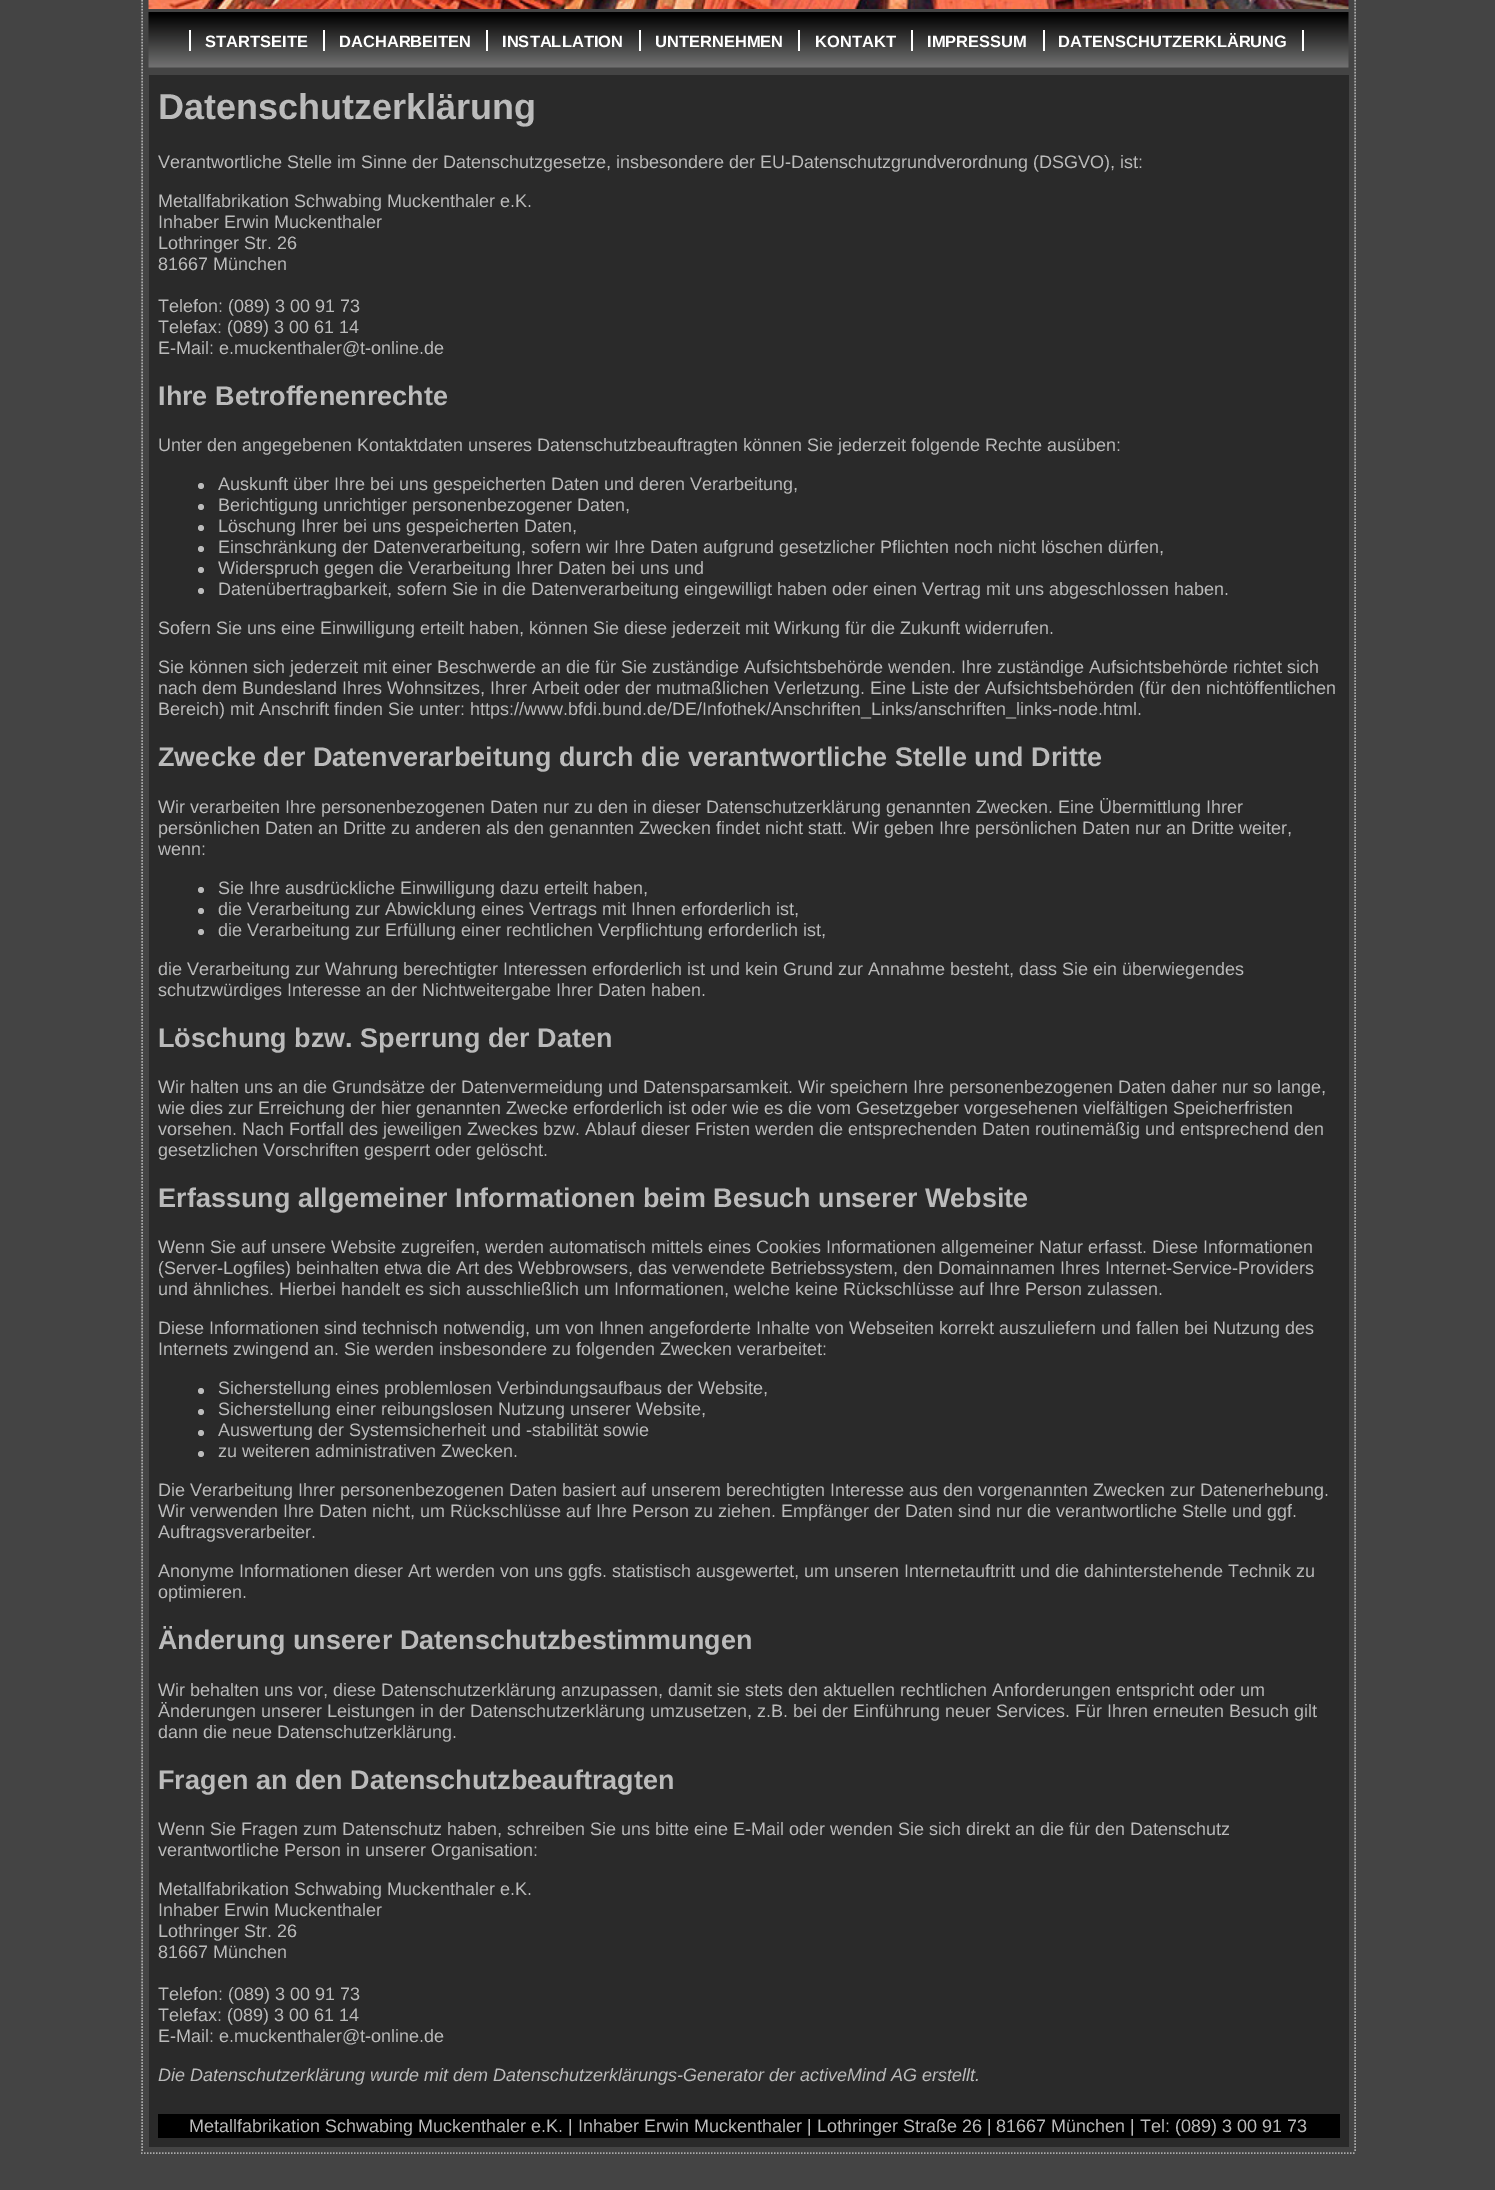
%!PS-Adobe-3.0
%%BoundingBox: 0 0 1495 2190
%%LanguageLevel: 3
%%Pages: 1
%%EndComments
%%BeginProlog
/m { moveto } bind def
/l { lineto } bind def
/f { fill } bind def
/S { stroke } bind def
/w { setlinewidth } bind def
/fn { [ exch dup neg 0 0 3 -1 roll 0 0 ] selectfont } def
/tx { moveto show } def
/bx { rectfill } def
/ci { newpath 0 360 arc closepath } def
/im { 5 dict begin { /h /w /y /x /name } { exch def } forall
  gsave x y translate w h scale
  w h 8 [w 0 0 h 0 0] name (r) file false 3 colorimage grestore end } def
%%EndProlog
%%BeginSetup
<< /PageSize [1495 2190] >> setpagedevice
%%EndSetup
%%Page: 1 1
0 2190 translate 1 -1 scale
4 setmiterlimit
0.267 setgray
0 0 1495 2190 bx
0.667 setgray
1.5 w
[1.5 1.5] 0 setdash
1355 -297 m 1355 2154 l S
141 2153 m 1356 2153 l S
142 -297 m 142 2154 l S
(image0.raw) 148 0 1201 9 im
(image1.raw) 148 12 1201 56 im
1 setgray
189 30 2 21 bx
323 30 2 21 bx
/LiberationSans-Bold 16.5 fn
(STARTSEITE) 205 47 tx
486 30 2 21 bx
(DACHARBEITEN) 339 47 tx
639 30 2 21 bx
(INSTALLATION) 502 47 tx
798 30 2 21 bx
(UNTERNEHMEN) 655 47 tx
911 30 2 21 bx
(KONTAKT) 815 47 tx
1043 30 2 21 bx
(IMPRESSUM) 927 47 tx
1302 30 2 21 bx
(DATENSCHUTZERKLÄRUNG) 1058 47 tx
0.165 setgray
149 75 1200 2072 bx
/LiberationSans-Bold 36 fn
0.733 setgray
(Datenschutzerklärung) 158 119 tx
/LiberationSans-Regular 18 fn
(Verantwortliche Stelle im Sinne der Datenschutzgesetze, insbesondere der EU-Datenschutzgrundverordnung \(DSGVO\), ist:) 158 168 tx
(Metallfabrikation Schwabing Muckenthaler e.K.) 158 207 tx
(Inhaber Erwin Muckenthaler) 158 228 tx
(Lothringer Str. 26) 158 249 tx
(81667 München) 158 270 tx
(Telefon: \(089\) 3 00 91 73) 158 312 tx
(Telefax: \(089\) 3 00 61 14) 158 333 tx
(E-Mail: e.muckenthaler@t-online.de) 158 354 tx
/LiberationSans-Bold 27 fn
(Ihre Betroffenenrechte) 158 405 tx
/LiberationSans-Regular 18 fn
(Unter den angegebenen Kontaktdaten unseres Datenschutzbeauftragten können Sie jederzeit folgende Rechte ausüben:) 158 451 tx
201 486 3 ci f
(Auskunft über Ihre bei uns gespeicherten Daten und deren Verarbeitung,) 218 490 tx
201 507 3 ci f
(Berichtigung unrichtiger personenbezogener Daten,) 218 511 tx
201 528 3 ci f
(Löschung Ihrer bei uns gespeicherten Daten,) 218 532 tx
201 549 3 ci f
(Einschränkung der Datenverarbeitung, sofern wir Ihre Daten aufgrund gesetzlicher Pflichten noch nicht löschen dürfen,) 218 553 tx
201 570 3 ci f
(Widerspruch gegen die Verarbeitung Ihrer Daten bei uns und) 218 574 tx
201 591 3 ci f
(Datenübertragbarkeit, sofern Sie in die Datenverarbeitung eingewilligt haben oder einen Vertrag mit uns abgeschlossen haben.) 218 595 tx
(Sofern Sie uns eine Einwilligung erteilt haben, können Sie diese jederzeit mit Wirkung für die Zukunft widerrufen.) 158 634 tx
(Sie können sich jederzeit mit einer Beschwerde an die für Sie zuständige Aufsichtsbehörde wenden. Ihre zuständige Aufsichtsbehörde richtet sich) 158 673 tx
(nach dem Bundesland Ihres Wohnsitzes, Ihrer Arbeit oder der mutmaßlichen Verletzung. Eine Liste der Aufsichtsbehörden \(für den nichtöffentlichen) 158 694 tx
(Bereich\) mit Anschrift finden Sie unter: https://www.bfdi.bund.de/DE/Infothek/Anschriften_Links/anschriften_links-node.html.) 158 715 tx
/LiberationSans-Bold 27 fn
(Zwecke der Datenverarbeitung durch die verantwortliche Stelle und Dritte) 158 766 tx
/LiberationSans-Regular 18 fn
(Wir verarbeiten Ihre personenbezogenen Daten nur zu den in dieser Datenschutzerklärung genannten Zwecken. Eine Übermittlung Ihrer) 158 813 tx
(persönlichen Daten an Dritte zu anderen als den genannten Zwecken findet nicht statt. Wir geben Ihre persönlichen Daten nur an Dritte weiter,) 158 834 tx
(wenn:) 158 855 tx
201 890 3 ci f
(Sie Ihre ausdrückliche Einwilligung dazu erteilt haben,) 218 894 tx
201 911 3 ci f
(die Verarbeitung zur Abwicklung eines Vertrags mit Ihnen erforderlich ist,) 218 915 tx
201 932 3 ci f
(die Verarbeitung zur Erfüllung einer rechtlichen Verpflichtung erforderlich ist,) 218 936 tx
(die Verarbeitung zur Wahrung berechtigter Interessen erforderlich ist und kein Grund zur Annahme besteht, dass Sie ein überwiegendes) 158 975 tx
(schutzwürdiges Interesse an der Nichtweitergabe Ihrer Daten haben.) 158 996 tx
/LiberationSans-Bold 27 fn
(Löschung bzw. Sperrung der Daten) 158 1047 tx
/LiberationSans-Regular 18 fn
(Wir halten uns an die Grundsätze der Datenvermeidung und Datensparsamkeit. Wir speichern Ihre personenbezogenen Daten daher nur so lange,) 158 1093 tx
(wie dies zur Erreichung der hier genannten Zwecke erforderlich ist oder wie es die vom Gesetzgeber vorgesehenen vielfältigen Speicherfristen) 158 1114 tx
(vorsehen. Nach Fortfall des jeweiligen Zweckes bzw. Ablauf dieser Fristen werden die entsprechenden Daten routinemäßig und entsprechend den) 158 1135 tx
(gesetzlichen Vorschriften gesperrt oder gelöscht.) 158 1156 tx
/LiberationSans-Bold 27 fn
(Erfassung allgemeiner Informationen beim Besuch unserer Website) 158 1207 tx
/LiberationSans-Regular 18 fn
(Wenn Sie auf unsere Website zugreifen, werden automatisch mittels eines Cookies Informationen allgemeiner Natur erfasst. Diese Informationen) 158 1253 tx
(\(Server-Logfiles\) beinhalten etwa die Art des Webbrowsers, das verwendete Betriebssystem, den Domainnamen Ihres Internet-Service-Providers) 158 1274 tx
(und ähnliches. Hierbei handelt es sich ausschließlich um Informationen, welche keine Rückschlüsse auf Ihre Person zulassen.) 158 1295 tx
(Diese Informationen sind technisch notwendig, um von Ihnen angeforderte Inhalte von Webseiten korrekt auszuliefern und fallen bei Nutzung des) 158 1334 tx
(Internets zwingend an. Sie werden insbesondere zu folgenden Zwecken verarbeitet:) 158 1355 tx
201 1391 3 ci f
(Sicherstellung eines problemlosen Verbindungsaufbaus der Website,) 218 1394 tx
201 1412 3 ci f
(Sicherstellung einer reibungslosen Nutzung unserer Website,) 218 1415 tx
201 1433 3 ci f
(Auswertung der Systemsicherheit und -stabilität sowie) 218 1436 tx
201 1454 3 ci f
(zu weiteren administrativen Zwecken.) 218 1457 tx
(Die Verarbeitung Ihrer personenbezogenen Daten basiert auf unserem berechtigten Interesse aus den vorgenannten Zwecken zur Datenerhebung.) 158 1496 tx
(Wir verwenden Ihre Daten nicht, um Rückschlüsse auf Ihre Person zu ziehen. Empfänger der Daten sind nur die verantwortliche Stelle und ggf.) 158 1517 tx
(Auftragsverarbeiter.) 158 1538 tx
(Anonyme Informationen dieser Art werden von uns ggfs. statistisch ausgewertet, um unseren Internetauftritt und die dahinterstehende Technik zu) 158 1577 tx
(optimieren.) 158 1598 tx
/LiberationSans-Bold 27 fn
(Änderung unserer Datenschutzbestimmungen) 158 1649 tx
/LiberationSans-Regular 18 fn
(Wir behalten uns vor, diese Datenschutzerklärung anzupassen, damit sie stets den aktuellen rechtlichen Anforderungen entspricht oder um) 158 1696 tx
(Änderungen unserer Leistungen in der Datenschutzerklärung umzusetzen, z.B. bei der Einführung neuer Services. Für Ihren erneuten Besuch gilt) 158 1717 tx
(dann die neue Datenschutzerklärung.) 158 1738 tx
/LiberationSans-Bold 27 fn
(Fragen an den Datenschutzbeauftragten) 158 1789 tx
/LiberationSans-Regular 18 fn
(Wenn Sie Fragen zum Datenschutz haben, schreiben Sie uns bitte eine E-Mail oder wenden Sie sich direkt an die für den Datenschutz) 158 1835 tx
(verantwortliche Person in unserer Organisation:) 158 1856 tx
(Metallfabrikation Schwabing Muckenthaler e.K.) 158 1895 tx
(Inhaber Erwin Muckenthaler) 158 1916 tx
(Lothringer Str. 26) 158 1937 tx
(81667 München) 158 1958 tx
(Telefon: \(089\) 3 00 91 73) 158 2000 tx
(Telefax: \(089\) 3 00 61 14) 158 2021 tx
(E-Mail: e.muckenthaler@t-online.de) 158 2042 tx
/LiberationSans-Italic 18 fn
(Die Datenschutzerklärung wurde mit dem Datenschutzerklärungs-Generator der activeMind AG erstellt.) 158 2081 tx
0 setgray
158 2114 1182 24 bx
/LiberationSans-Regular 18 fn
0.733 setgray
(Metallfabrikation Schwabing Muckenthaler e.K. | Inhaber Erwin Muckenthaler | Lothringer Straße 26 | 81667 München | Tel: \(089\) 3 00 91 73) 189 2132 tx
showpage
%%EOF
